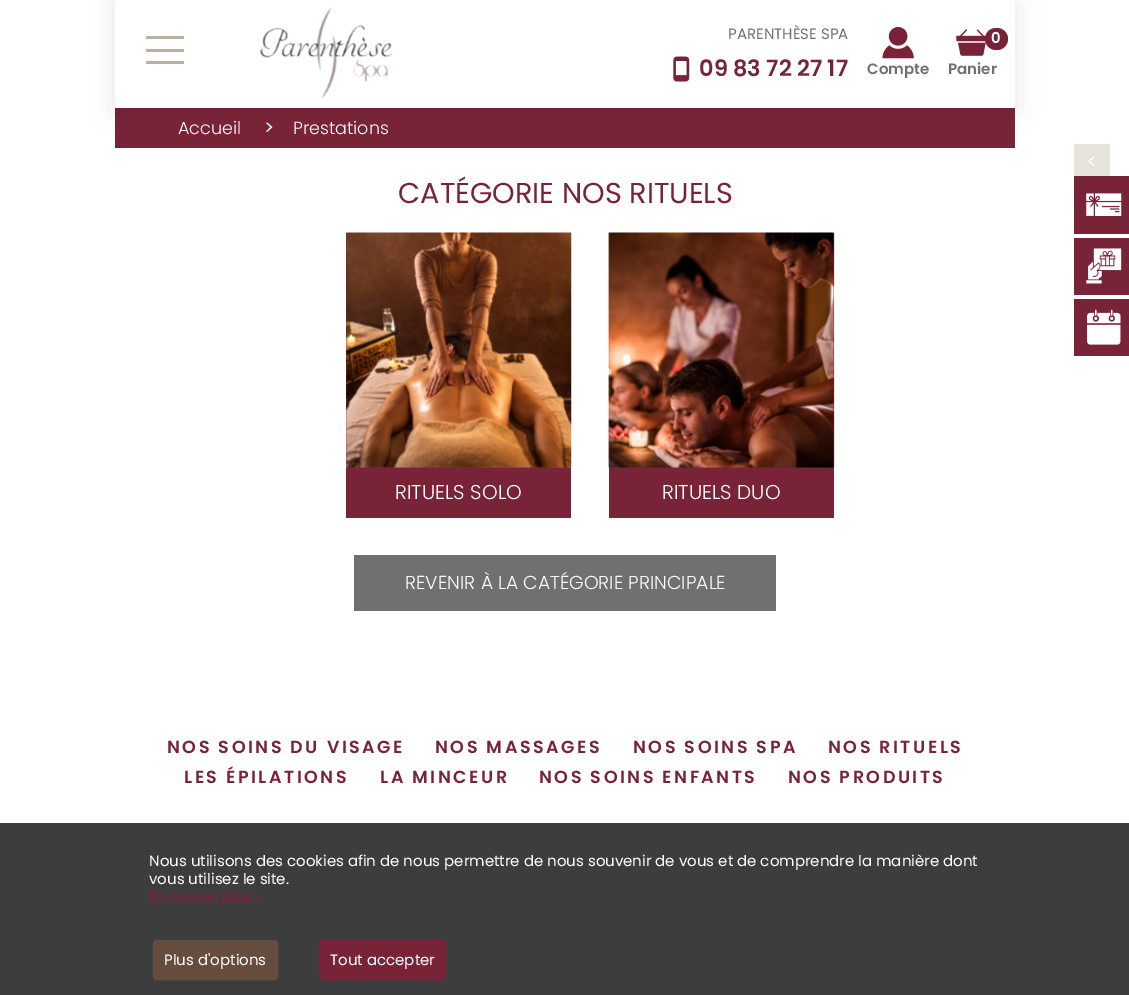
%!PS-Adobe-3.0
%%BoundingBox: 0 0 1129 995
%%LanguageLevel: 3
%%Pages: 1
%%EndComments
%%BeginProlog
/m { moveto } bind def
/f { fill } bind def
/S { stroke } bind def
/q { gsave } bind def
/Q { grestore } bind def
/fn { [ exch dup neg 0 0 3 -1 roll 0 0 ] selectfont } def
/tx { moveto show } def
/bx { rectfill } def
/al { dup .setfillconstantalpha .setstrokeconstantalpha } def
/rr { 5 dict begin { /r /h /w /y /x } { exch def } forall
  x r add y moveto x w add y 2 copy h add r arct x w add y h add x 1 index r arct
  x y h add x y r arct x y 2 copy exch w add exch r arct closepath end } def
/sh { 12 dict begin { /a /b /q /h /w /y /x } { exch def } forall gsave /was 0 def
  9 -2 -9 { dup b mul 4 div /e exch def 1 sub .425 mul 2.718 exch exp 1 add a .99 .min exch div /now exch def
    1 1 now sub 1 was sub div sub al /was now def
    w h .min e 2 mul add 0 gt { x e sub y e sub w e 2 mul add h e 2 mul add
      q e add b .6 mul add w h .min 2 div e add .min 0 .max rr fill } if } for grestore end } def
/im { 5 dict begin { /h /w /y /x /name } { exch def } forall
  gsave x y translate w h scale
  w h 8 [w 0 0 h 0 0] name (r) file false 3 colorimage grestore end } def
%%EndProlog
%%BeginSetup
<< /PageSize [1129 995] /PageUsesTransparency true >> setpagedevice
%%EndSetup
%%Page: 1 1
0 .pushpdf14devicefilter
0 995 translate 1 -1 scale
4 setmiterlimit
1 setgray
0 0 1129 995 bx
0.471 0.137 0.22 setrgbcolor
115 108 900 40 bx
0 setgray
115 3 900 107 0 12.5 0.1 sh
1 setgray
115 0 900 108 bx
0.729 0.69 0.624 setrgbcolor
146 49 38 3 bx
146 36 38 3 bx
146 61 38 3 bx
(image0.raw) 260 7 133 92 im
/Poppins-Regular 15 fn
0.439 setgray
(PARENTHÈSE SPA) 728 39 tx
(image1.raw) 673 56 17 26 im
/Poppins-SemiBold 22.5 fn
0.471 0.137 0.22 setrgbcolor
(09 83 72 27 17) 699 76 tx
(image2.raw) 882 26 32 33 im
/Poppins-SemiBold 15 fn
0.439 setgray
(Compte) 867 74 tx
(image3.raw) 956 29 30 27 im
0.471 0.137 0.22 setrgbcolor
985 28 23 22 11 rr f
1 setgray
(0) 991 43 tx
0.439 setgray
(Panier) 948 74 tx
/Poppins-Light 17.5 fn
1 setgray
(Accueil) 178 134 tx
/Poppins-Regular 18.75 fn
(>) 264 134 tx
/Poppins-Light 17.5 fn
(Prestations) 293 134 tx
/Poppins-Regular 28.75 fn
0.471 0.137 0.22 setrgbcolor
(CATÉGORIE NOS RITUELS) 398 203 tx
346 233 225 285 bx
(image4.raw) 346 232 226 236 im
/Poppins-Light 20 fn
1 setgray
(RITUELS SOLO) 395 499 tx
0.471 0.137 0.22 setrgbcolor
609 233 225 285 bx
(image5.raw) 608 232 227 236 im
1 setgray
(RITUELS DUO) 662 499 tx
0.439 setgray
354 555 422 56 bx
/Poppins-Light 18.75 fn
1 setgray
(REVENIR À LA CATÉGORIE PRINCIPALE) 405 589 tx
0.902 0.89 0.867 setrgbcolor
1074 144 36 32 bx
/Poppins-Regular 20 fn
1 setgray
q 1097 154 translate 180 rotate 0 0 m (>) show Q
0.471 0.137 0.22 setrgbcolor
1074 176 55 58 bx
(image6.raw) 1086 193 36 23 im
1074 238 55 57 bx
(image7.raw) 1086 248 36 36 im
1074 299 55 57 bx
(image8.raw) 1087 309 34 36 im
/Poppins-SemiBold 17.5 fn
167 753 m 2.5 0 (NOS SOINS DU VISAGE) ashow
435 753 m 2.5 0 (NOS MASSAGES) ashow
633 753 m 2.5 0 (NOS SOINS SPA) ashow
828 753 m 2.5 0 (NOS RITUELS) ashow
184 783 m 2.5 0 (LES ÉPILATIONS) ashow
380 783 m 2.5 0 (LA MINCEUR) ashow
539 783 m 2.5 0 (NOS SOINS ENFANTS) ashow
788 783 m 2.5 0 (NOS PRODUITS) ashow
0.239 setgray
0 823 1129 172 bx
/Poppins-Regular 15 fn
1 setgray
(Nous utilisons des cookies afin de nous permettre de nous souvenir de vous et de comprendre la manière dont) 149 866 tx
(vous utilisez le site.) 149 884 tx
/Poppins-SemiBold 15 fn
0.471 0.137 0.22 setrgbcolor
(En savoir plus ›) 149 902 tx
0.4 0.298 0.239 setrgbcolor
153.5 940.5 124 39 3.5 rr q f Q
S
/Poppins-Regular 15 fn
1 setgray
(Plus d'options) 164 965 tx
0.471 0.137 0.22 setrgbcolor
319.5 940.5 126 39 3.5 rr q f Q
S
1 setgray
(Tout accepter) 330 965 tx
.poppdf14devicefilter showpage
%%EOF
